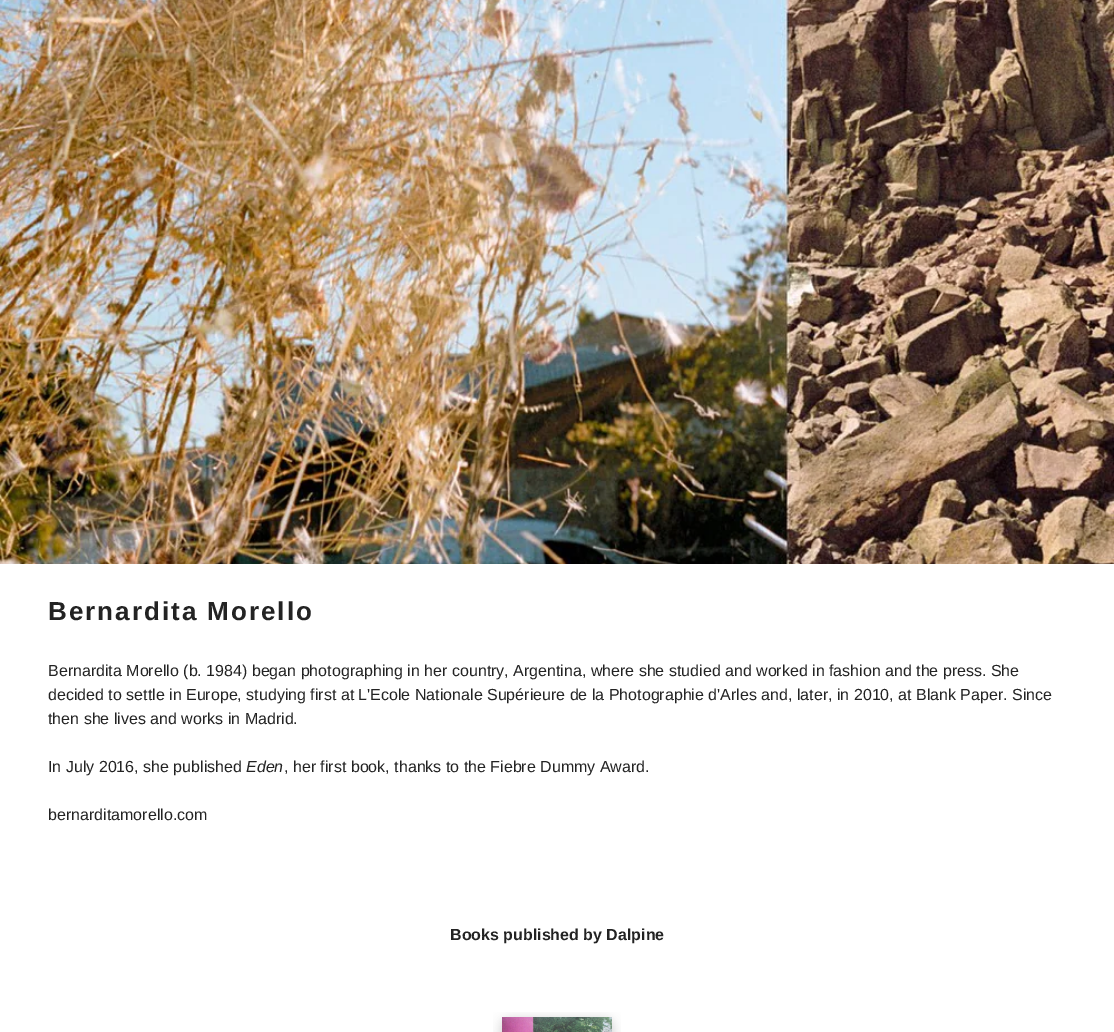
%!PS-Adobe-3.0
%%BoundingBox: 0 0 1114 1032
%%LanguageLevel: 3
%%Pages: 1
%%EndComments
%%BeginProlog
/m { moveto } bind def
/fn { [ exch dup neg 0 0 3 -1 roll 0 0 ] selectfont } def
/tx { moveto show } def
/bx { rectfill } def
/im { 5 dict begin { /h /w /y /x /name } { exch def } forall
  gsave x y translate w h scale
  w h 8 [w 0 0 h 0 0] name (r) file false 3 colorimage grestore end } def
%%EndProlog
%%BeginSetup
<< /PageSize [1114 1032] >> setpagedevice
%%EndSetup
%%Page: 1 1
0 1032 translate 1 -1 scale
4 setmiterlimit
1 setgray
0 0 1114 1032 bx
(image0.raw) 0 0 1114 564 im
/LiberationSans-Bold 26 fn
0.137 setgray
48 620 m 2 0 (Bernardita Morello) ashow
/LiberationSans-Regular 16 fn
(Bernardita Morello \(b. 1984\) began photographing in her country, Argentina, where she studied and worked in fashion and the press. She) 48 676 tx
(decided to settle in Europe, studying first at L'Ecole Nationale Supérieure de la Photographie d'Arles and, later, in 2010, at Blank Paper. Since) 48 700 tx
(then she lives and works in Madrid.) 48 724 tx
(In July 2016, she published) 48 772 tx
/LiberationSans-Italic 16 fn
(Eden) 246 772 tx
/LiberationSans-Regular 16 fn
(, her first book, thanks to the Fiebre Dummy Award.) 284 772 tx
(bernarditamorello.com) 48 820 tx
/LiberationSans-Bold 16 fn
(Books published by Dalpine) 450 940 tx
(image1.raw) 493 1012 128 20 im
showpage
%%EOF
